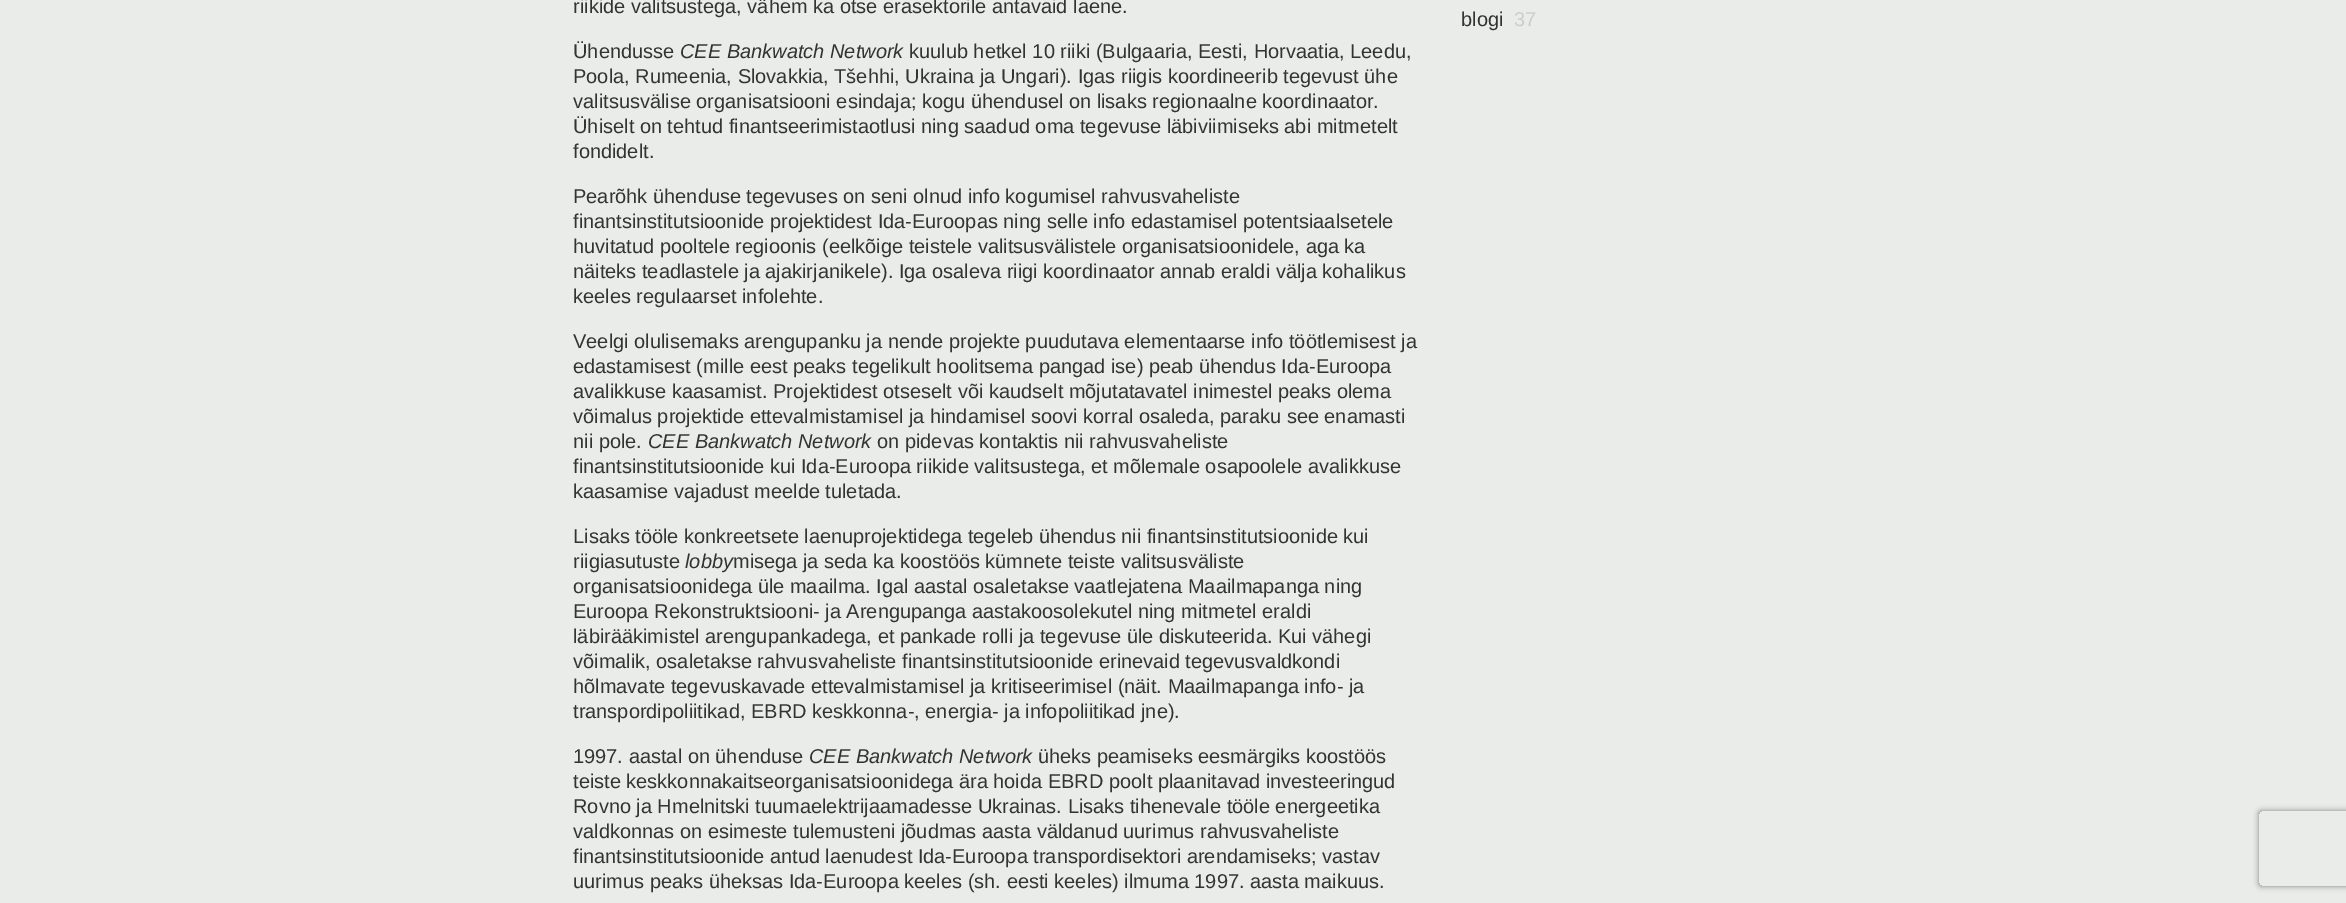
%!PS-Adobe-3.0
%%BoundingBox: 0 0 2346 903
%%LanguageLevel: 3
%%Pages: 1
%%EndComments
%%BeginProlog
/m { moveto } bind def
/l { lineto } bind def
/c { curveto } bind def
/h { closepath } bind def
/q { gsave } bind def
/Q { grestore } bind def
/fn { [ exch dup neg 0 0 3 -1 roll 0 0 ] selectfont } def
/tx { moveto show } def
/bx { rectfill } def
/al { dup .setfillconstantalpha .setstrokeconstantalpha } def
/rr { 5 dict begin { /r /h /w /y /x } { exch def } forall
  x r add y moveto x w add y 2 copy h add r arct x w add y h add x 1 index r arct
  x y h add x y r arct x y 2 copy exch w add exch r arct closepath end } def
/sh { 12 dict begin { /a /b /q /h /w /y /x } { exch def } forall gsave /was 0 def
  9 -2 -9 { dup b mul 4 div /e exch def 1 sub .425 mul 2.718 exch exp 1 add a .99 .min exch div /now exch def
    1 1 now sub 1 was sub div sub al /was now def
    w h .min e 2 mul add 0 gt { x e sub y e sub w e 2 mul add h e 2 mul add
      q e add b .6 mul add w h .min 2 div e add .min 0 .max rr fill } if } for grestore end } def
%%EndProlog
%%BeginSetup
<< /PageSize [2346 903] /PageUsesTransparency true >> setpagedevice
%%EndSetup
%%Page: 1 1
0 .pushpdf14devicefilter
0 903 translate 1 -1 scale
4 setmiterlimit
0.918 0.925 0.918 setrgbcolor
0 0 2346 903 bx
/LiberationSans-Regular 20 fn
0.2 setgray
(riikide valitsustega, vähem ka otse erasektorile antavaid laene.) 573 13 tx
(Ühendusse) 573 58 tx
/LiberationSans-Italic 20 fn
(CEE Bankwatch Network) 680 58 tx
/LiberationSans-Regular 20 fn
(kuulub hetkel 10 riiki \(Bulgaaria, Eesti, Horvaatia, Leedu,) 909 58 tx
(Poola, Rumeenia, Slovakkia, Tšehhi, Ukraina ja Ungari\). Igas riigis koordineerib tegevust ühe) 573 83 tx
(valitsusvälise organisatsiooni esindaja; kogu ühendusel on lisaks regionaalne koordinaator.) 573 108 tx
(Ühiselt on tehtud finantseerimistaotlusi ning saadud oma tegevuse läbiviimiseks abi mitmetelt) 573 133 tx
(fondidelt.) 573 158 tx
(Pearõhk ühenduse tegevuses on seni olnud info kogumisel rahvusvaheliste) 573 203 tx
(finantsinstitutsioonide projektidest Ida-Euroopas ning selle info edastamisel potentsiaalsetele) 573 228 tx
(huvitatud pooltele regioonis \(eelkõige teistele valitsusvälistele organisatsioonidele, aga ka) 573 253 tx
(näiteks teadlastele ja ajakirjanikele\). Iga osaleva riigi koordinaator annab eraldi välja kohalikus) 573 278 tx
(keeles regulaarset infolehte.) 573 303 tx
(Veelgi olulisemaks arengupanku ja nende projekte puudutava elementaarse info töötlemisest ja) 573 348 tx
(edastamisest \(mille eest peaks tegelikult hoolitsema pangad ise\) peab ühendus Ida-Euroopa) 573 373 tx
(avalikkuse kaasamist. Projektidest otseselt või kaudselt mõjutatavatel inimestel peaks olema) 573 398 tx
(võimalus projektide ettevalmistamisel ja hindamisel soovi korral osaleda, paraku see enamasti) 573 423 tx
(nii pole.) 573 448 tx
/LiberationSans-Italic 20 fn
(CEE Bankwatch Network) 648 448 tx
/LiberationSans-Regular 20 fn
(on pidevas kontaktis nii rahvusvaheliste) 877 448 tx
(finantsinstitutsioonide kui Ida-Euroopa riikide valitsustega, et mõlemale osapoolele avalikkuse) 573 473 tx
(kaasamise vajadust meelde tuletada.) 573 498 tx
(Lisaks tööle konkreetsete laenuprojektidega tegeleb ühendus nii finantsinstitutsioonide kui) 573 543 tx
(riigiasutuste) 573 568 tx
/LiberationSans-Italic 20 fn
(lobby) 685 568 tx
/LiberationSans-Regular 20 fn
(misega ja seda ka koostöös kümnete teiste valitsusväliste) 733 568 tx
(organisatsioonidega üle maailma. Igal aastal osaletakse vaatlejatena Maailmapanga ning) 573 593 tx
(Euroopa Rekonstruktsiooni- ja Arengupanga aastakoosolekutel ning mitmetel eraldi) 573 618 tx
(läbirääkimistel arengupankadega, et pankade rolli ja tegevuse üle diskuteerida. Kui vähegi) 573 643 tx
(võimalik, osaletakse rahvusvaheliste finantsinstitutsioonide erinevaid tegevusvaldkondi) 573 668 tx
(hõlmavate tegevuskavade ettevalmistamisel ja kritiseerimisel \(näit. Maailmapanga info- ja) 573 693 tx
(transpordipoliitikad, EBRD keskkonna-, energia- ja infopoliitikad jne\).) 573 718 tx
(1997. aastal on ühenduse) 573 763 tx
/LiberationSans-Italic 20 fn
(CEE Bankwatch Network) 809 763 tx
/LiberationSans-Regular 20 fn
(üheks peamiseks eesmärgiks koostöös) 1038 763 tx
(teiste keskkonnakaitseorganisatsioonidega ära hoida EBRD poolt plaanitavad investeeringud) 573 788 tx
(Rovno ja Hmelnitski tuumaelektrijaamadesse Ukrainas. Lisaks tihenevale tööle energeetika) 573 813 tx
(valdkonnas on esimeste tulemusteni jõudmas aasta väldanud uurimus rahvusvaheliste) 573 838 tx
(finantsinstitutsioonide antud laenudest Ida-Euroopa transpordisektori arendamiseks; vastav) 573 863 tx
(uurimus peaks üheksas Ida-Euroopa keeles \(sh. eesti keeles\) ilmuma 1997. aasta maikuus.) 573 888 tx
(blogi) 1461 26 tx
0.8 setgray
(37) 1514 26 tx
q
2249 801 m 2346 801 l 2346 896 l 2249 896 l h 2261.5 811 m 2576.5 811 l 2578 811 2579 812 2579 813.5 c 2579 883.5 l 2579 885 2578 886 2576.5 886 c 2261.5 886 l 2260 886 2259 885 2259 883.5 c 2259 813.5 l 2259 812 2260 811 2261.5 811 c h eoclip newpath
0.502 setgray
2259 811 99 75 2.5 3 1 sh
Q
.poppdf14devicefilter showpage
%%EOF
